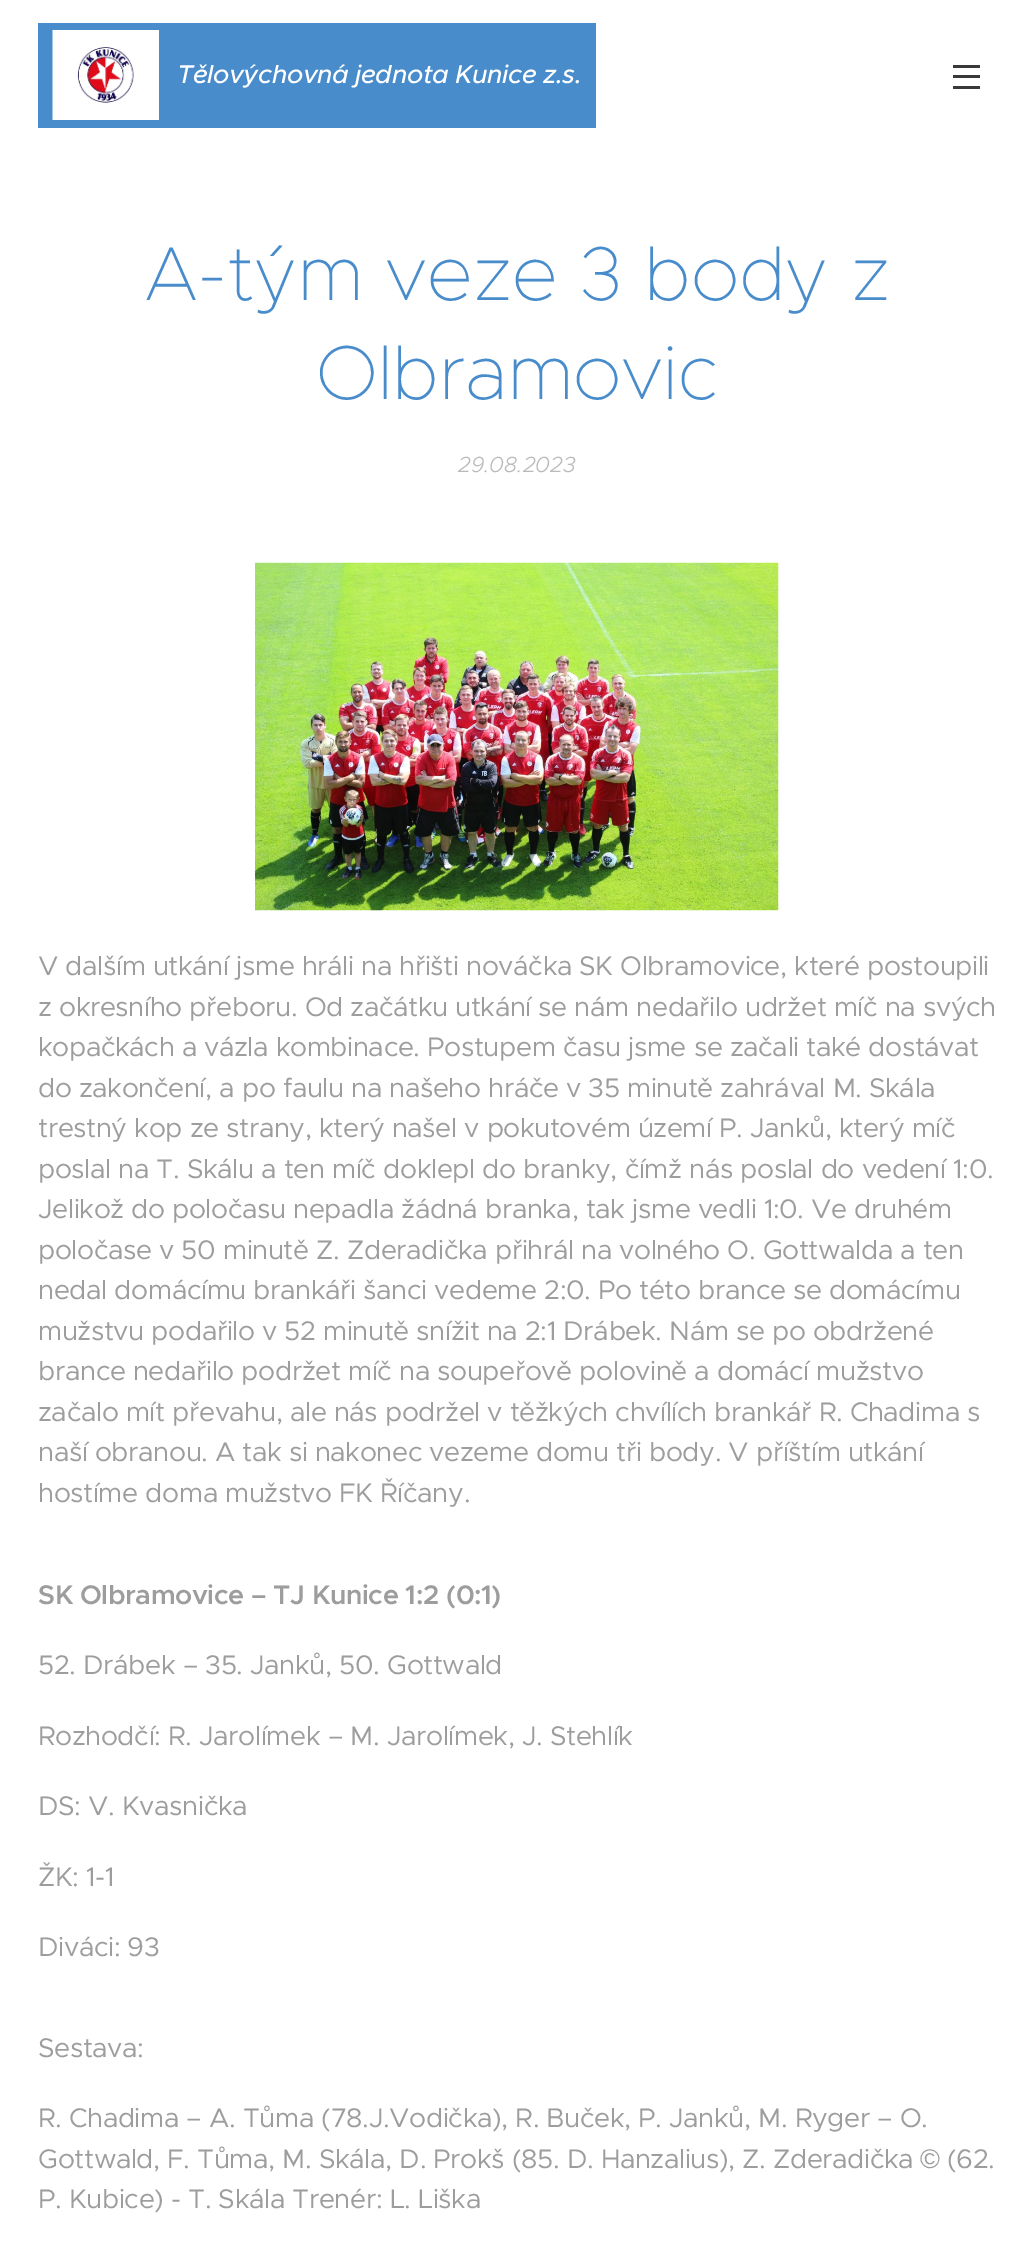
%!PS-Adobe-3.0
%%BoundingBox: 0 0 1033 2241
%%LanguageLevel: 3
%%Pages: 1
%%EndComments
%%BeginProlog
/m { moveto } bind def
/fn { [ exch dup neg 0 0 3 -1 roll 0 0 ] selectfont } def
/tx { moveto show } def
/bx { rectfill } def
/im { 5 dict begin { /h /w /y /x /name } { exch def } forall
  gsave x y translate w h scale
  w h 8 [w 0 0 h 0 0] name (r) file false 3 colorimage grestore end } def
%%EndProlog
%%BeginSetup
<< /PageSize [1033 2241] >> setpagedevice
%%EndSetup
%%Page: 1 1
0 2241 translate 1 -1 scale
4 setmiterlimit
1 setgray
0 0 1033 2241 bx
0.282 0.549 0.796 setrgbcolor
38 23 558 105 bx
(image0.raw) 52 30 107 90 im
/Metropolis-MediumItalic 25.75 fn
1 setgray
177 83 m -0.4 0 (Tělovýchovná jednota Kunice z.s.) ashow
0.224 setgray
953 75 27 3 bx
953 65 27 3 bx
953 86 27 3 bx
/Metropolis-Thin 76.5 fn
0.282 0.549 0.796 setrgbcolor
(A-tým veze 3 body z) 144 300 tx
(Olbramovic) 316 399 tx
/Metropolis-LightItalic 22 fn
0.729 setgray
(29.08.2023) 458 472 tx
(image1.raw) 255 562 524 349 im
/Metropolis-Regular 27 fn
0.616 setgray
38 975 m -0.4 0 (V dalším utkání jsme hráli na hřišti nováčka SK Olbramovice, které postoupili) ashow
38 1016 m -0.4 0 (z okresního přeboru. Od začátku utkání se nám nedařilo udržet míč na svých) ashow
38 1056 m -0.4 0 (kopačkách a vázla kombinace. Postupem času jsme se začali také dostávat) ashow
38 1097 m -0.4 0 (do zakončení, a po faulu na našeho hráče v 35 minutě zahrával M. Skála) ashow
38 1137 m -0.4 0 (trestný kop ze strany, který našel v pokutovém území P. Janků, který míč) ashow
38 1178 m -0.4 0 (poslal na T. Skálu a ten míč doklepl do branky, čímž nás poslal do vedení 1:0.) ashow
38 1218 m -0.4 0 (Jelikož do poločasu nepadla žádná branka, tak jsme vedli 1:0. Ve druhém) ashow
38 1259 m -0.4 0 (poločase v 50 minutě Z. Zderadička přihrál na volného O. Gottwalda a ten) ashow
38 1299 m -0.4 0 (nedal domácímu brankáři šanci vedeme 2:0. Po této brance se domácímu) ashow
38 1340 m -0.4 0 (mužstvu podařilo v 52 minutě snížit na 2:1 Drábek. Nám se po obdržené) ashow
38 1380 m -0.4 0 (brance nedařilo podržet míč na soupeřově polovině a domácí mužstvo) ashow
38 1421 m -0.4 0 (začalo mít převahu, ale nás podržel v těžkých chvílích brankář R. Chadima s) ashow
38 1461 m -0.4 0 (naší obranou. A tak si nakonec vezeme domu tři body. V příštím utkání) ashow
38 1502 m -0.4 0 (hostíme doma mužstvo FK Říčany.) ashow
/Metropolis-SemiBold 27 fn
38 1604 m -0.4 0 (SK Olbramovice – TJ Kunice 1:2 \(0:1\)) ashow
/Metropolis-Regular 27 fn
38 1674 m -0.4 0 (52. Drábek – 35. Janků, 50. Gottwald) ashow
38 1745 m -0.4 0 (Rozhodčí: R. Jarolímek – M. Jarolímek, J. Stehlík) ashow
38 1815 m -0.4 0 (DS: V. Kvasnička) ashow
38 1886 m -0.4 0 (ŽK: 1-1) ashow
38 1956 m -0.4 0 (Diváci: 93) ashow
38 2057 m -0.4 0 (Sestava:) ashow
38 2127 m -0.4 0 (R. Chadima – A. Tůma \(78.J.Vodička\), R. Buček, P. Janků, M. Ryger – O.) ashow
38 2168 m -0.4 0 (Gottwald, F. Tůma, M. Skála, D. Prokš \(85. D. Hanzalius\), Z. Zderadička) ashow
/LiberationSans-Regular 27 fn
920 2168 m -0.4 0 (©) ashow
/Metropolis-Regular 27 fn
947 2168 m -0.4 0 (\(62.) ashow
38 2208 m -0.4 0 (P. Kubice\) - T. Skála Trenér: L. Liška) ashow
showpage
%%EOF
